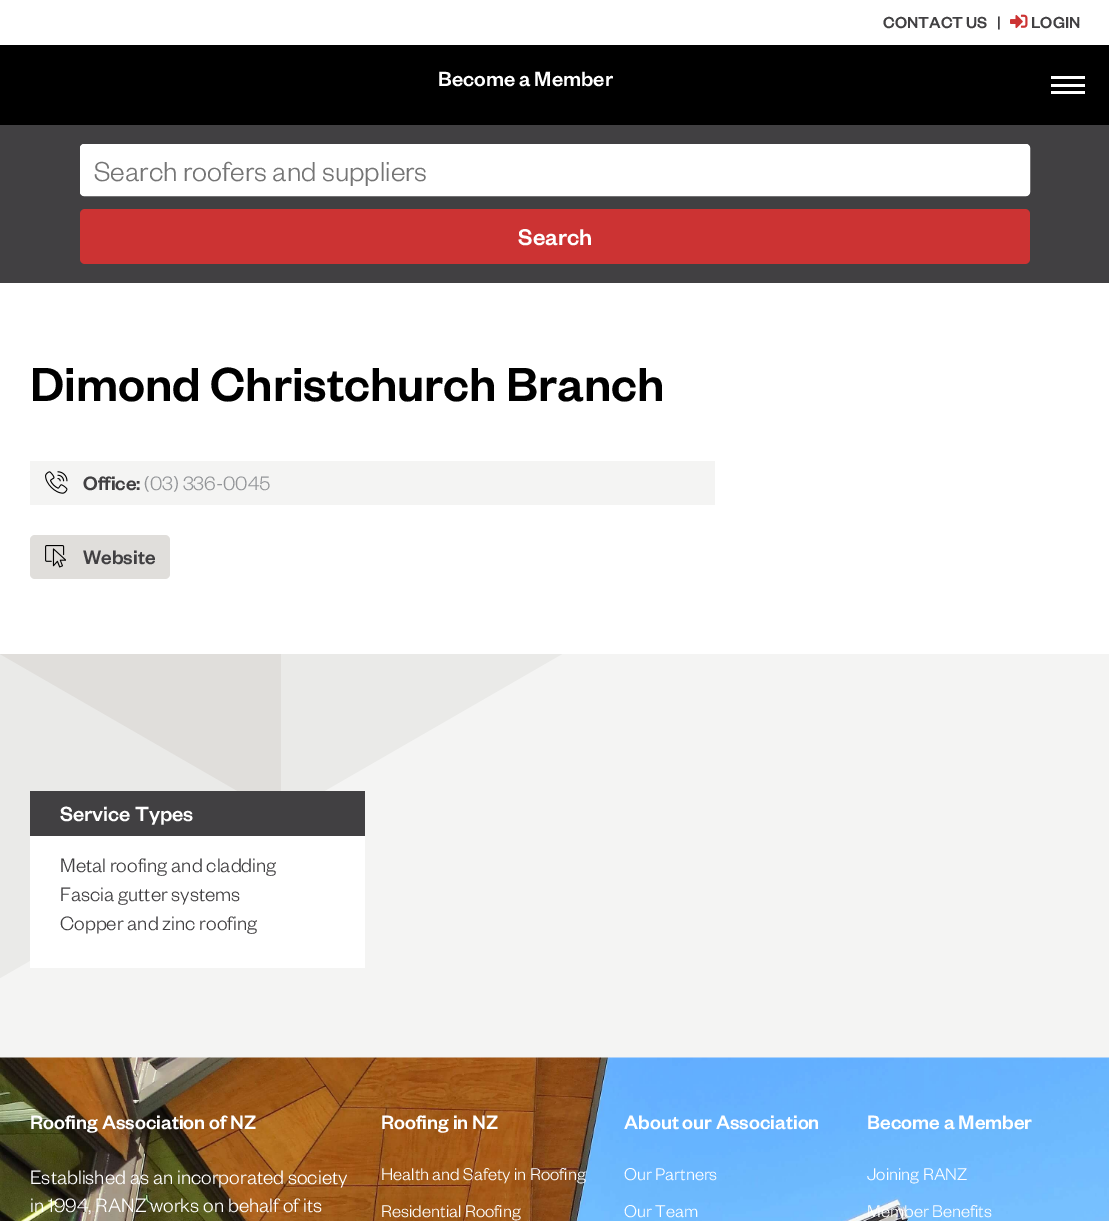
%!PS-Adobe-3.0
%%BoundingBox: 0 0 1109 1221
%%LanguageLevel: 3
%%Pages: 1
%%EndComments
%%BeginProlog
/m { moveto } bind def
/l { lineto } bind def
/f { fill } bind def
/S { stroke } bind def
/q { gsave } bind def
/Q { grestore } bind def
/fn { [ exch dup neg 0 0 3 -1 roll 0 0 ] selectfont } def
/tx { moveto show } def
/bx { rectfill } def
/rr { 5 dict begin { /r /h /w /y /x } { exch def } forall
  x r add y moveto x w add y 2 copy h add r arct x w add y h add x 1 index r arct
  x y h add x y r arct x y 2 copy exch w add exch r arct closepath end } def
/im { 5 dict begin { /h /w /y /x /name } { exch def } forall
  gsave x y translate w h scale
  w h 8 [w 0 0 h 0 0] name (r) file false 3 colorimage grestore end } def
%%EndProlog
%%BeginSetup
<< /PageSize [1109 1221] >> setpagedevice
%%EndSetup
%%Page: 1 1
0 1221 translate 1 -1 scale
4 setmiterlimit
1 setgray
0 0 1109 1221 bx
0 setgray
0 45 1109 80 bx
/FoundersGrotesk-Medium 17.5 fn
0.255 0.251 0.259 setrgbcolor
(CONTACT US) 883 28 tx
(|) 997 28 tx
(image0.raw) 1010 14 18 15 im
(LOGIN) 1031 28 tx
/FoundersGrotesk-Medium 22.5 fn
1 setgray
(Become a Member) 438 86 tx
1051 84 34 3 bx
1051 76 34 3 bx
1051 91 34 3 bx
0.255 0.251 0.259 setrgbcolor
0 125 1109 158 bx
1 setgray
80.5 144.5 949 51 3.5 rr q f Q
S
/FoundersGrotesk-Light 30 fn
0.459 setgray
(Search roofers and suppliers) 94 181 tx
0.8 0.2 0.2 setrgbcolor
80 209 950 55 5 rr f
/FoundersGrotesk-Medium 25 fn
1 setgray
(Search) 518 245 tx
/FoundersGrotesk-Medium 52.5 fn
0 setgray
(Dimond Christchurch Branch) 30 401 tx
0.957 0.957 0.953 setrgbcolor
30 461 685 44 bx
(image1.raw) 45 471 23 23 im
/FoundersGrotesk-Medium 21.25 fn
0.255 0.251 0.259 setrgbcolor
(Office:) 83 490 tx
/FoundersGrotesk-Light 21.25 fn
0.576 0.584 0.596 setrgbcolor
(\(03\) 336-0045) 144 490 tx
0.878 0.871 0.859 setrgbcolor
30 535 140 44 5 rr f
(image2.raw) 45 545 21 23 im
/FoundersGrotesk-Medium 21.25 fn
0.255 0.251 0.259 setrgbcolor
(Website) 83 564 tx
0.957 0.957 0.953 setrgbcolor
0 654 1109 404 bx
0.918 0.918 0.91 setrgbcolor
0 654 m 0 978 l 562 654 l 0 654 l f
0.878 0.871 0.859 setrgbcolor
0 654 m 281 816 l 281 654 l 0 654 l f
1 setgray
30 836 335 132 bx
0.255 0.251 0.259 setrgbcolor
30 791 335 45 bx
/FoundersGrotesk-Medium 22.5 fn
1 setgray
(Service Types) 60 821 tx
/FoundersGrotesk-Light 21.25 fn
0.255 0.251 0.259 setrgbcolor
(Metal roofing and cladding) 60 872 tx
(Fascia gutter systems) 60 901 tx
(Copper and zinc roofing) 60 930 tx
(image3.raw) 0 1057 1109 164 im
/FoundersGrotesk-Medium 21.25 fn
1 setgray
(Roofing Association of NZ) 30 1129 tx
/FoundersGrotesk-Light 21.25 fn
(Established as an incorporated society) 30 1184 tx
(in 1994, RANZ works on behalf of its) 30 1212 tx
/FoundersGrotesk-Medium 21.25 fn
(Roofing in NZ) 381 1129 tx
/FoundersGrotesk-Light 18.75 fn
(Health and Safety in Roofing) 381 1180 tx
(Residential Roofing) 381 1217 tx
/FoundersGrotesk-Medium 21.25 fn
(About our Association) 624 1129 tx
/FoundersGrotesk-Light 18.75 fn
(Our Partners) 624 1180 tx
(Our Team) 624 1217 tx
/FoundersGrotesk-Medium 21.25 fn
(Become a Member) 867 1129 tx
/FoundersGrotesk-Light 18.75 fn
(Joining RANZ) 867 1180 tx
(Member Benefits) 867 1217 tx
showpage
%%EOF
